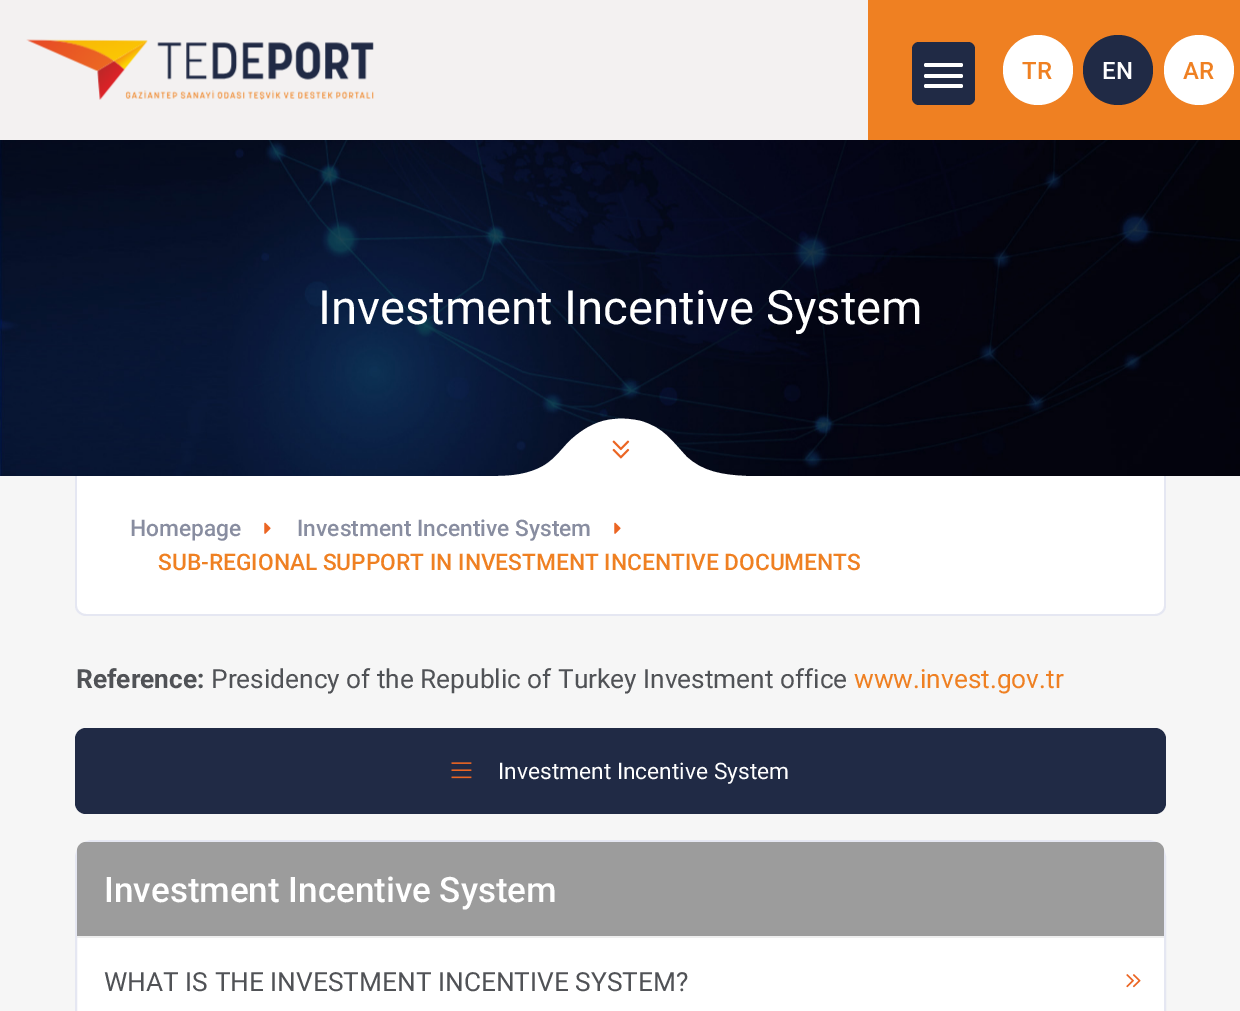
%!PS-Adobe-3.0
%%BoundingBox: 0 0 1240 1011
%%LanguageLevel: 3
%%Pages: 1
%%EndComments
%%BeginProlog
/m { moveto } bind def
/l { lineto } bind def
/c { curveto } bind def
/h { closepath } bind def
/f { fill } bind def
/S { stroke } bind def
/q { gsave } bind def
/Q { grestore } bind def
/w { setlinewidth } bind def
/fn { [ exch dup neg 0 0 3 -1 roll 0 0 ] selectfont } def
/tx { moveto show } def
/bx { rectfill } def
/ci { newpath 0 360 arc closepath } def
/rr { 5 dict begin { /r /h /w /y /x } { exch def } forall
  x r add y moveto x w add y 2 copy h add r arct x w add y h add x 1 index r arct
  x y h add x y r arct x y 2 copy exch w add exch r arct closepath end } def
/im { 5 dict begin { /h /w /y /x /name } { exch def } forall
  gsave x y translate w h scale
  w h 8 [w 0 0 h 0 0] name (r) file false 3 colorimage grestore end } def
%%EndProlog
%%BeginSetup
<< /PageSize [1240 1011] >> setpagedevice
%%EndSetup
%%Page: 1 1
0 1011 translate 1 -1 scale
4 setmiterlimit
1 setgray
0 0 1240 1011 bx
0.953 0.945 0.945 setrgbcolor
0 0 868 140 bx
(image0.raw) 26 39 348 61 im
0.937 0.502 0.133 setrgbcolor
868 0 372 140 bx
0.125 0.165 0.271 setrgbcolor
912 42 63 63 7 rr f
1 setgray
924 63 39 4 2 rr f
924 74 39 4 2 rr f
924 84 39 4 2 rr f
1038 70 35 ci f
/Roboto-Medium 24 fn
0.937 0.502 0.133 setrgbcolor
(TR) 1022 79 tx
0.125 0.165 0.271 setrgbcolor
1118 70 35 ci f
1 setgray
(EN) 1102 79 tx
1199 70 35 ci f
0.937 0.502 0.133 setrgbcolor
(AR) 1183 79 tx
(image1.raw) 0 140 1240 336 im
/Roboto-Regular 47.25 fn
1 setgray
(Investment Incentive System) 318 324 tx
686 456 m 671 440 664 428 641 421 c 632 419 623 418 615 419 c 599 420 586 427 574 437 c 563 446 557 458 543 466 c 529 474 512 476 497 476 c 497 520 l 746 520 l 746 476 l 724 475 702 472 686 456 c h f
(image2.raw) 612 440 18 19 im
0.965 setgray
0 476 1240 535 bx
1 setgray
75 476 m 1166 476 l 1166 605 l 1166 611 1161 616 1155 616 c 86 616 l 80 616 75 611 75 605 c h f
0.898 0.906 0.949 setrgbcolor
75 476 m 1166 476 l 1166 606 l 1166 611 1161 616 1155 616 c 86 616 l 80 616 75 611 75 606 c h 77 476 m 1164 476 l 1164 606 l 1164 610 1160 614 1155 614 c 86 614 l 81 614 77 610 77 606 c h eofill
/Roboto-Medium 22.75 fn
0.533 0.553 0.627 setrgbcolor
(Homepage) 130 536 tx
(image3.raw) 264 522 7 12 im
(Investment Incentive System) 297 536 tx
(image3.raw) 614 522 7 12 im
0.937 0.502 0.133 setrgbcolor
(SUB-REGIONAL SUPPORT IN INVESTMENT INCENTIVE DOCUMENTS) 158 570 tx
/Roboto-Bold 26.25 fn
0.314 0.322 0.337 setrgbcolor
(Reference:) 76 688 tx
/Roboto-Regular 26.25 fn
(Presidency of the Republic of Turkey Investment office) 211 688 tx
0.937 0.502 0.133 setrgbcolor
(www.invest.gov.tr) 854 688 tx
0.125 0.165 0.271 setrgbcolor
75 728 1091 86 11 rr f
(image4.raw) 451 762 21 17 im
/Roboto-Regular 22.75 fn
1 setgray
(Investment Incentive System) 498 779 tx
76 841 1089 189 17 rr q f Q
0.898 0.906 0.949 setrgbcolor
2 w
S
0.612 setgray
86 842 m 1155 842 l 1160 842 1164 846 1164 851 c 1164 936 l 77 936 l 77 851 l 77 846 81 842 86 842 c h f
/Roboto-Medium 35 fn
1 setgray
(Investment Incentive System) 104 902 tx
0.933 setgray
77 936 1087 2 bx
/Roboto-Regular 26.25 fn
0.314 0.322 0.337 setrgbcolor
(WHAT IS THE INVESTMENT INCENTIVE SYSTEM?) 104 991 tx
(image5.raw) 1126 974 15 14 im
showpage
%%EOF
